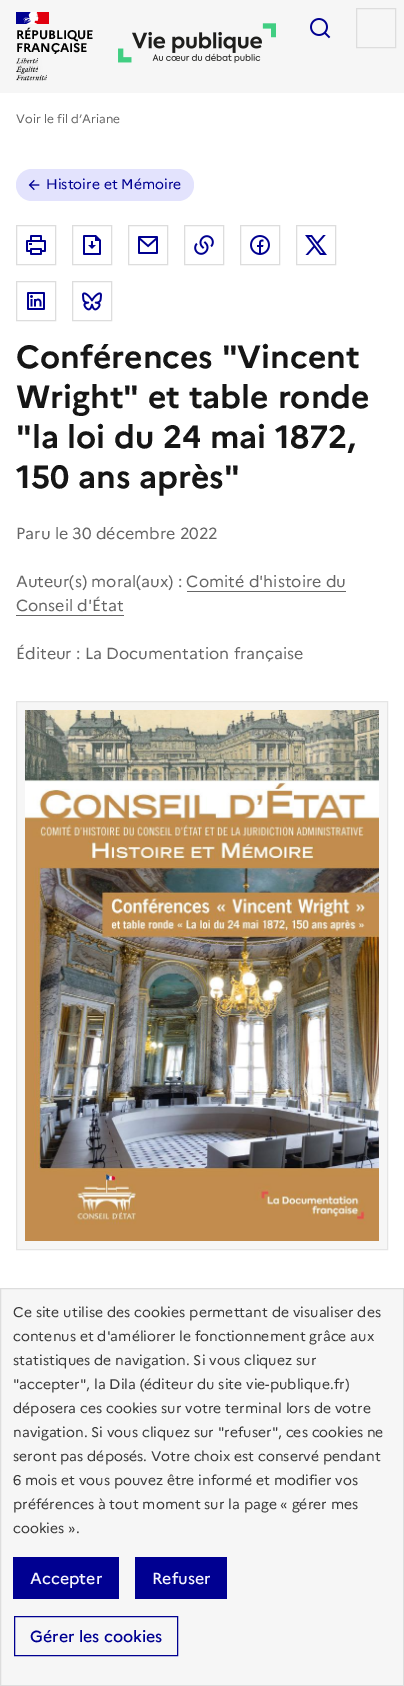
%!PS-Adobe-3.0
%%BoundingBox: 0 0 404 1686
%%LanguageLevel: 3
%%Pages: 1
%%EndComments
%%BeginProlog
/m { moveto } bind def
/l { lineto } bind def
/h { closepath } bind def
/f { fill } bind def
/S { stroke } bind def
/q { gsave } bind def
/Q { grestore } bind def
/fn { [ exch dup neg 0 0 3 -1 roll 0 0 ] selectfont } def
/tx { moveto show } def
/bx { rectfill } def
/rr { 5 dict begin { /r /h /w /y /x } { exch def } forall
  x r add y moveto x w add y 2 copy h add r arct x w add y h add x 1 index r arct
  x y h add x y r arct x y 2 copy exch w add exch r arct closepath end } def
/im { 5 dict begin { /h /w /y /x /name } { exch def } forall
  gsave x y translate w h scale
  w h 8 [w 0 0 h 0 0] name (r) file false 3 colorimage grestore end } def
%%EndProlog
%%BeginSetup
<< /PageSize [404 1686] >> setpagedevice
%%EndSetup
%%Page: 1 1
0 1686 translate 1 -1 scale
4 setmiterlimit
1 setgray
0 0 404 1686 bx
0.965 setgray
0 0 404 93 bx
0 0 0.569 setrgbcolor
16 12 16 12 bx
0.882 0 0.059 setrgbcolor
34 12 15 12 bx
(image0.raw) 23 12 16 12 im
/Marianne-Bold 12.5 fn
0 setgray
16 39 m -0.1 0 (RÉPUBLIQUE) ashow
16 52 m -0.1 0 (FRANÇAISE) ashow
(image1.raw) 16 58 31 23 im
(image2.raw) 118 23 158 40 im
(image3.raw) 310 18 21 21 im
0.867 setgray
356.5 8.5 39 39 rectstroke
/Marianne-Regular 12 fn
0.4 setgray
(Voir le fil d’Ariane) 16 123 tx
0.89 0.89 0.992 setrgbcolor
16 169 178 32 16 rr f
(image4.raw) 28 179 12 12 im
/Marianne-Regular 14 fn
0 0 0.569 setrgbcolor
(Histoire et Mémoire) 46 189 tx
0.867 setgray
16.5 225.5 39 39 rectstroke
(image5.raw) 26 235 20 20 im
72.5 225.5 39 39 rectstroke
(image6.raw) 83 235 18 20 im
128.5 225.5 39 39 rectstroke
(image7.raw) 138 236 20 18 im
184.5 225.5 39 39 rectstroke
(image8.raw) 194 235 20 20 im
240.5 225.5 39 39 rectstroke
(image9.raw) 250 235 20 20 im
296.5 225.5 39 39 rectstroke
(image10.raw) 305 235 22 20 im
16.5 281.5 39 39 rectstroke
(image11.raw) 27 292 18 18 im
72.5 281.5 39 39 rectstroke
(image12.raw) 82 292 20 19 im
/Marianne-Bold 32 fn
0.086 setgray
(Conférences "Vincent) 16 368 tx
(Wright" et table ronde) 16 408 tx
("la loi du 24 mai 1872,) 16 448 tx
(150 ans après") 16 488 tx
/Marianne-Regular 16 fn
0.4 setgray
(Paru le 30 décembre 2022) 16 539 tx
(Auteur\(s\) moral\(aux\) : Comité d'histoire du) 16 587 tx
(Conseil d'État) 16 611 tx
187 591 159 1 bx
16 615 108 1 bx
(Éditeur : La Documentation française) 16 659 tx
0.965 setgray
16.5 701.5 m 387.5 701.5 l 387.5 1249.5 l 16.5 1249.5 l h q f Q
0.898 setgray
S
(image13.raw) 25 710 354 531 im
0.965 setgray
0.5 1288.5 m 403.5 1288.5 l 403.5 1685.5 l 0.5 1685.5 l h q f Q
0.867 setgray
S
/Marianne-Regular 14 fn
0.227 setgray
(Ce site utilise des cookies permettant de visualiser des) 13 1317 tx
(contenus et d'améliorer le fonctionnement grâce aux) 13 1341 tx
(statistiques de navigation. Si vous cliquez sur) 13 1365 tx
("accepter", la Dila \(éditeur du site vie-publique.fr\)) 13 1389 tx
(déposera ces cookies sur votre terminal lors de votre) 13 1413 tx
(navigation. Si vous cliquez sur "refuser", ces cookies ne) 13 1437 tx
(seront pas déposés. Votre choix est conservé pendant) 13 1461 tx
(6 mois et vous pouvez être informé et modifier vos) 13 1485 tx
(préférences à tout moment sur la page « gérer mes) 13 1509 tx
(cookies ».) 13 1533 tx
0 0 0.569 setrgbcolor
13 1557 106 42 bx
/Marianne-Medium 16 fn
0.961 0.961 0.996 setrgbcolor
(Accepter) 30 1584 tx
0 0 0.569 setrgbcolor
135 1557 92 42 bx
0.961 0.961 0.996 setrgbcolor
(Refuser) 152 1584 tx
0 0 0.569 setrgbcolor
14.5 1616.5 163 39 rectstroke
(Gérer les cookies) 30 1642 tx
showpage
%%EOF
